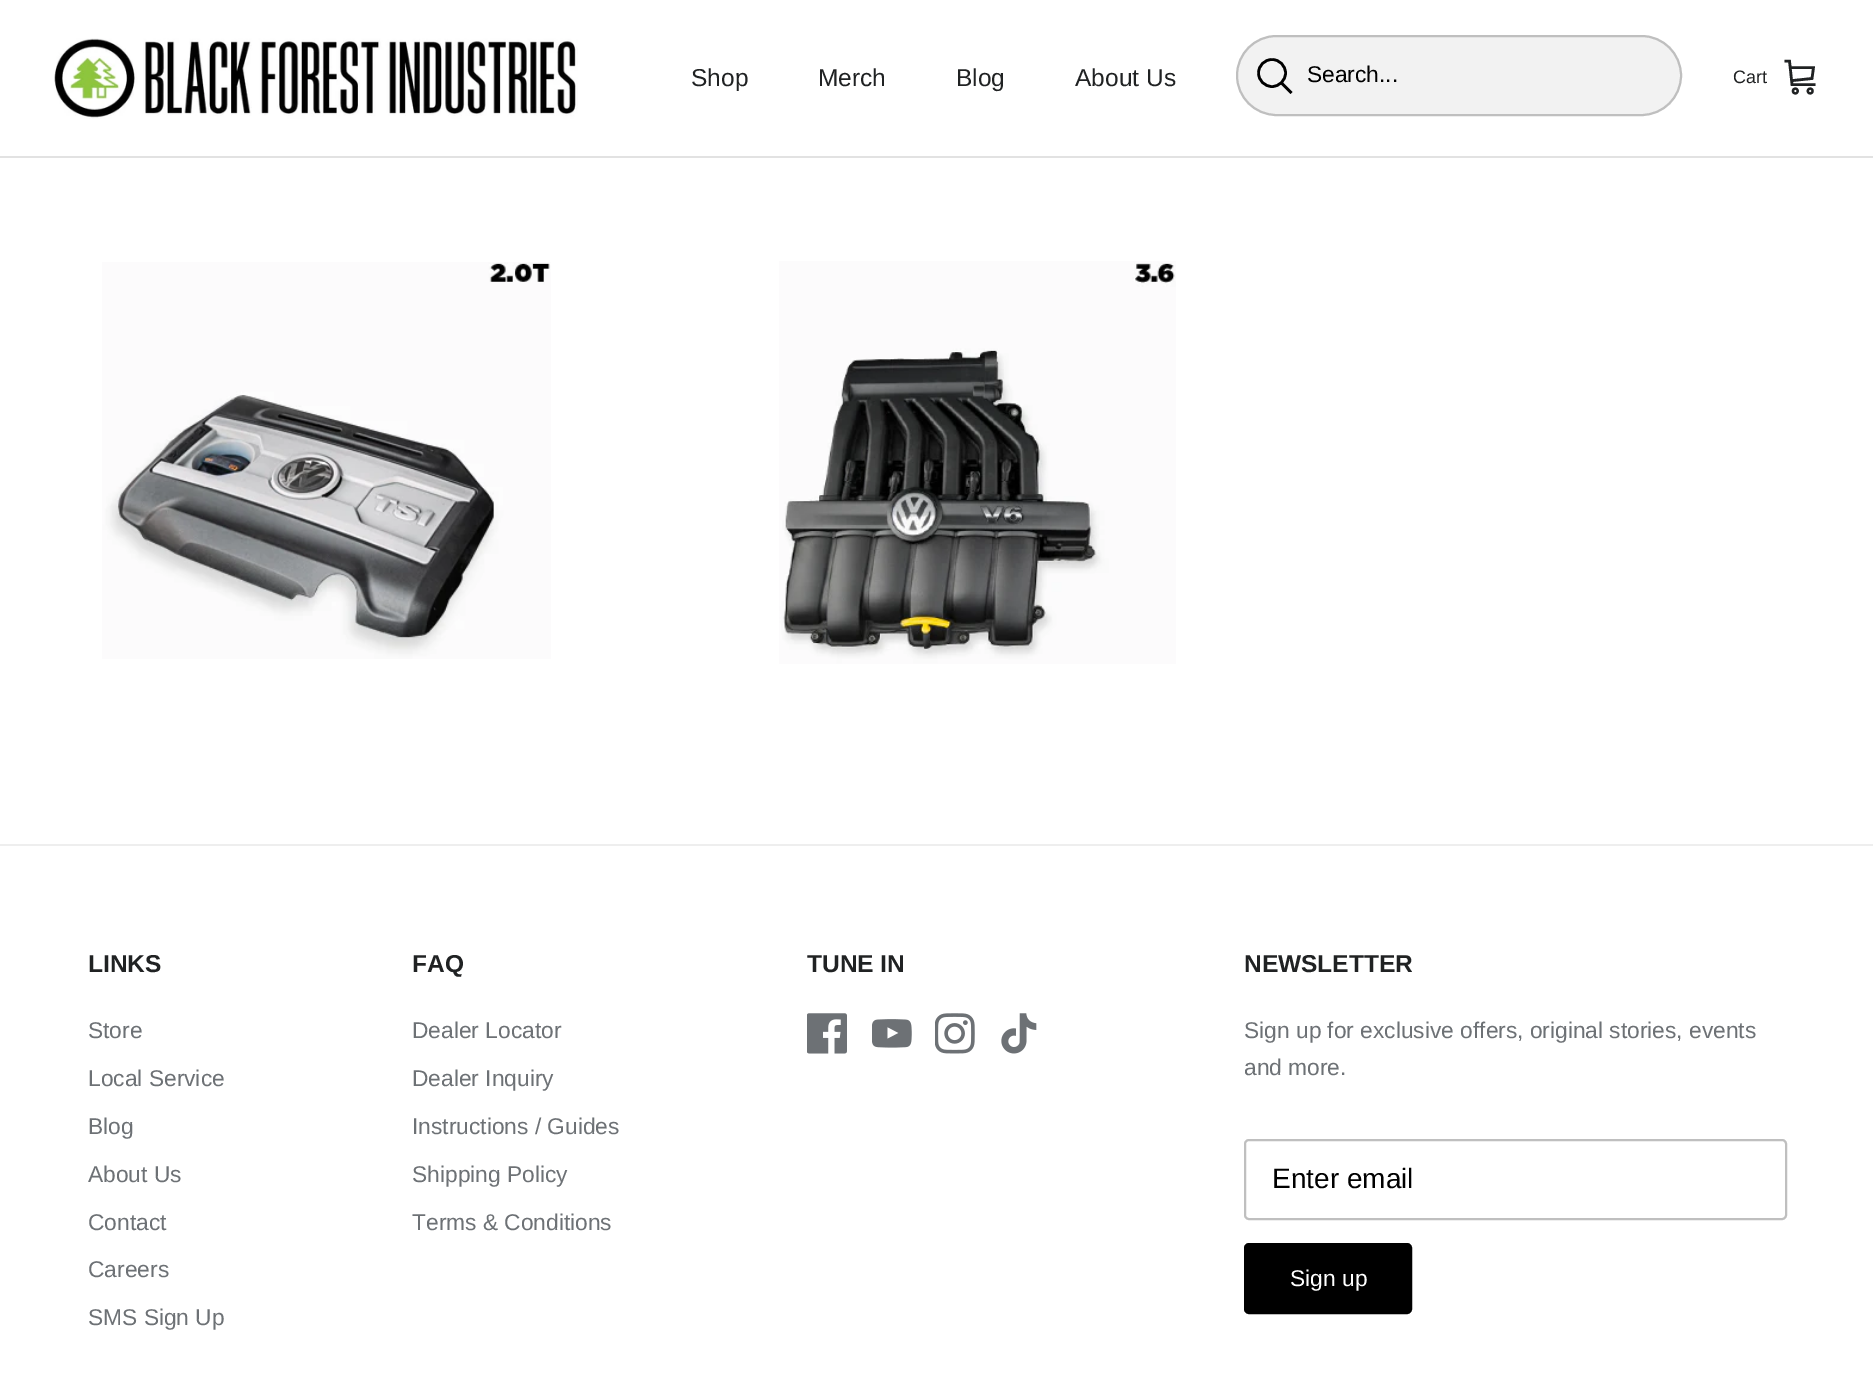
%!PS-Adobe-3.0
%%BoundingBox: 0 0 1873 1397
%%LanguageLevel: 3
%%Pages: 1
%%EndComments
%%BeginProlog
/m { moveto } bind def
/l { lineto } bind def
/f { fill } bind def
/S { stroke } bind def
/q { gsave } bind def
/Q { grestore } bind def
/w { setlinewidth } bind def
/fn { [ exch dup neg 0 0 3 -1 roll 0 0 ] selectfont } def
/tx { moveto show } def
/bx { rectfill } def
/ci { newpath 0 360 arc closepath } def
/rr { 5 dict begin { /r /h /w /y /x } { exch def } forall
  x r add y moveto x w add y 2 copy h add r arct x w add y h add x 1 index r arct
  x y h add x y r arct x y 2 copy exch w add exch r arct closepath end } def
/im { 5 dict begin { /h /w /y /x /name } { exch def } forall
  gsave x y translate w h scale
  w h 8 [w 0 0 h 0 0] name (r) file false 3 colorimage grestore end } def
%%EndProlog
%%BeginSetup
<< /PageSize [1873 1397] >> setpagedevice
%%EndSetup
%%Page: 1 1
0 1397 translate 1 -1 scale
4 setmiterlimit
1 setgray
0 0 1873 1397 bx
0.949 setgray
1237 36 444 79 39.5 rr q f Q
0.749 setgray
2 w
S
0 setgray
2.6 w
1272 73 13.5 ci S
2 setlinecap
1282.5 84 m 1290.5 92 l S
/LiberationSans-Regular 22.75 fn
(Search...) 1307 82 tx
0.886 setgray
0 156 1873 2 bx
(image0.raw) 54 38 524 81 im
/LiberationSans-Regular 24.5 fn
0.125 0.133 0.137 setrgbcolor
(Shop) 691 86 tx
(Merch) 818 86 tx
(Blog) 956 86 tx
(About Us) 1075 86 tx
/LiberationSans-Regular 18 fn
(Cart) 1733 83 tx
1786 61 m 1789.5 61 l 1792 84.5 l 1814 84.5 l 1790.5 67.5 m 1813.5 67.5 l 1812 78.5 l 1793 80.5 l S
2.2 w
0 setlinecap
1795.3 91 2.4 ci S
1810.2 91 2.4 ci S
(image1.raw) 102 262 449 397 im
(image2.raw) 779 261 397 403 im
0.933 setgray
0 844 1873 2 bx
/LiberationSans-Bold 24.5 fn
0.125 0.133 0.137 setrgbcolor
(LINKS) 88 972 tx
/LiberationSans-Regular 22.75 fn
0.427 0.443 0.459 setrgbcolor
(Store) 88 1038 tx
(Local Service) 88 1086 tx
(Blog) 88 1134 tx
(About Us) 88 1182 tx
(Contact) 88 1230 tx
(Careers) 88 1277 tx
(SMS Sign Up) 88 1325 tx
/LiberationSans-Bold 24.5 fn
0.125 0.133 0.137 setrgbcolor
(FAQ) 412 972 tx
/LiberationSans-Regular 22.75 fn
0.427 0.443 0.459 setrgbcolor
(Dealer Locator) 412 1038 tx
(Dealer Inquiry) 412 1086 tx
(Instructions / Guides) 412 1134 tx
(Shipping Policy) 412 1182 tx
(Terms & Conditions) 412 1230 tx
/LiberationSans-Bold 24.5 fn
0.125 0.133 0.137 setrgbcolor
(TUNE IN) 807 972 tx
(image3.raw) 807 1013 40 41 im
(image4.raw) 872 1019 40 29 im
(image5.raw) 935 1013 40 41 im
(image6.raw) 1001 1013 36 41 im
(NEWSLETTER) 1244 972 tx
/LiberationSans-Regular 22.75 fn
0.427 0.443 0.459 setrgbcolor
(Sign up for exclusive offers, original stories, events) 1244 1038 tx
(and more.) 1244 1075 tx
0.749 setgray
2 w
1245 1140 541 79 4 rr S
/LiberationSans-Regular 28 fn
0 setgray
(Enter email) 1272 1188 tx
1245 1244 166 69 4 rr q f Q
S
/LiberationSans-Regular 22.75 fn
1 setgray
(Sign up) 1290 1286 tx
showpage
%%EOF
